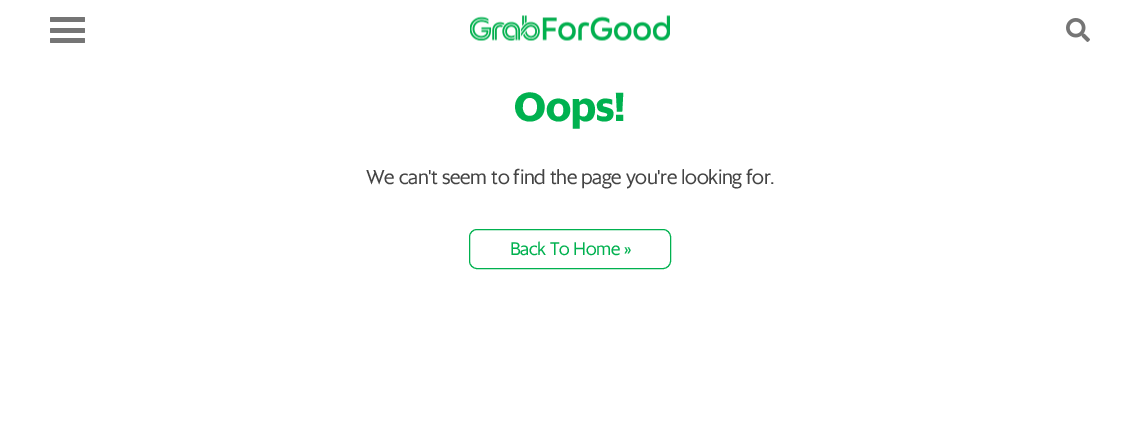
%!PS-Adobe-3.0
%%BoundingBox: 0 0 1140 443
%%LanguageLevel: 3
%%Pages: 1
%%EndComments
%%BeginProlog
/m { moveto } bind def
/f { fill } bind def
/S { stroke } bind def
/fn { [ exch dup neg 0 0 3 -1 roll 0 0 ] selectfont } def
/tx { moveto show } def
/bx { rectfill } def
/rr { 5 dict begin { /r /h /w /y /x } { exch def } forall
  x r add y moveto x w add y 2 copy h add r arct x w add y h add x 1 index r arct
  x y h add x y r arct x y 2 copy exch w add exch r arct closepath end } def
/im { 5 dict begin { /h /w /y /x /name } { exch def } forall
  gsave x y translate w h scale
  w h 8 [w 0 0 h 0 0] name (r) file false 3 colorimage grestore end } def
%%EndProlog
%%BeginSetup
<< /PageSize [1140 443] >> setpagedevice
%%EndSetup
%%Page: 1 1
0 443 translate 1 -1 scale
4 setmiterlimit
1 setgray
0 0 1140 443 bx
0.459 setgray
50 17 35 5 1 rr f
50 28 35 5 1 rr f
50 38 35 5 1 rr f
(image0.raw) 470 15 200 26 im
(image1.raw) 1066 18 24 24 im
/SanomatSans-Bold 40 fn
0 0.694 0.31 setrgbcolor
(Oops!) 514 121 tx
/SanomatSans-Regular 20 fn
0.267 setgray
366 184 m -0.4 0 (We can't seem to find the page you're looking for.) ashow
0 0.694 0.31 setrgbcolor
469.5 229.5 201 39 7.5 rr S
/SanomatSans-Regular 18 fn
510 255 m -0.4 0 (Back To Home ») ashow
showpage
%%EOF
